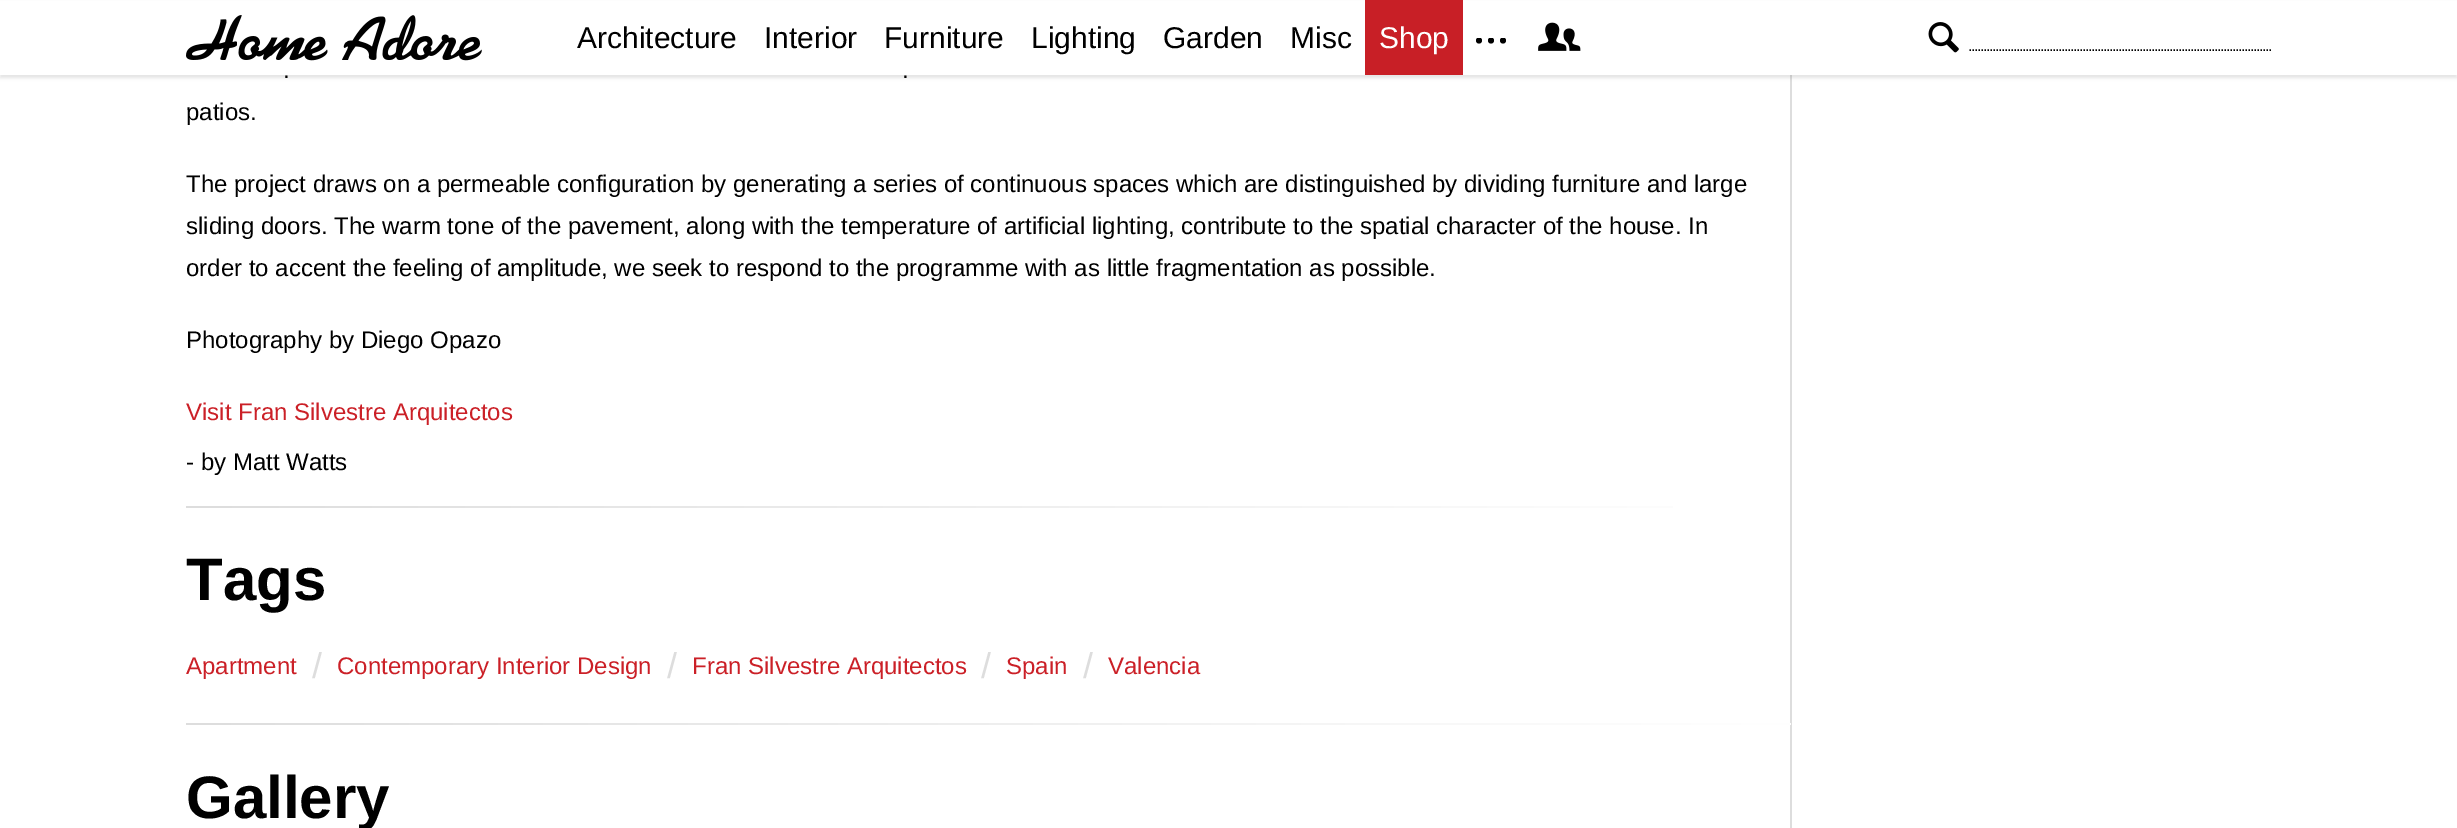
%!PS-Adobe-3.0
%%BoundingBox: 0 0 2457 828
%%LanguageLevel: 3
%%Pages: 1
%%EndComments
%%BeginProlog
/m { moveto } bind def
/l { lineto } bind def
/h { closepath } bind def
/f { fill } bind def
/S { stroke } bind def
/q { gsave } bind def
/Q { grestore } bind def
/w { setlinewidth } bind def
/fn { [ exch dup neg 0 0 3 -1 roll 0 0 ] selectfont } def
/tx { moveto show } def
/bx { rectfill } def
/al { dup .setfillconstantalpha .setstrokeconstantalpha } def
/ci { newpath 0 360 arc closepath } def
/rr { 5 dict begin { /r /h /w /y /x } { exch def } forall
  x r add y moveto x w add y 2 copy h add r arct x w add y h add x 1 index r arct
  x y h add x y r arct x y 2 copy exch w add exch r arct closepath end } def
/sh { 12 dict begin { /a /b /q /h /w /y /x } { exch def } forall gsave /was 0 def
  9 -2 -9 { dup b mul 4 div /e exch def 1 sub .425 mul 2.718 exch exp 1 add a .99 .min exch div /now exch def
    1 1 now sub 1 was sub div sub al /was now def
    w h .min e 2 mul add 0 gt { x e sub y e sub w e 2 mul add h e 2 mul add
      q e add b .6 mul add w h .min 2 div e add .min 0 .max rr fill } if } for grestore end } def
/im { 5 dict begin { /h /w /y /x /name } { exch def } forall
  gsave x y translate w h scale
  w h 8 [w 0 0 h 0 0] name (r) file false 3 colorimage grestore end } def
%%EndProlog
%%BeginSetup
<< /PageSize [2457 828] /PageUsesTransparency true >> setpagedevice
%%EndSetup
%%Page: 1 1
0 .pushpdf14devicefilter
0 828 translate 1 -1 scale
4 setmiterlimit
1 setgray
0 0 2457 828 bx
0.867 setgray
1790 75 2 753 bx
0 setgray
0 3 2457 75 0 1.5 0.1 sh
1 setgray
0 1 2457 74 bx
(image0.raw) 186 15 296 46 im
/LiberationSans-Regular 30 fn
0 setgray
(Architecture) 577 48 tx
(Interior) 764 48 tx
(Furniture) 884 48 tx
(Lighting) 1031 48 tx
(Garden) 1163 48 tx
(Misc) 1290 48 tx
0.784 0.122 0.149 setrgbcolor
1365 0 98 75 bx
1 setgray
(Shop) 1379 48 tx
q
1476 38 30 10 rectclip
0 setgray
1479 40.5 3 ci f
1491 40.5 3 ci f
1503 40.5 3 ci f
Q
(image1.raw) 1538 22 43 29 im
(image2.raw) 1928 22 31 31 im
0 setgray
1.5 w
[1.5 1.5] 0 setdash
1969.5 50 m 2271 50 l S
/LiberationSans-Regular 24 fn
(.) 283 78 tx
(.) 902 78 tx
(patios.) 186 120 tx
(The project draws on a permeable configuration by generating a series of continuous spaces which are distinguished by dividing furniture and large) 186 192 tx
(sliding doors. The warm tone of the pavement, along with the temperature of artificial lighting, contribute to the spatial character of the house. In) 186 234 tx
(order to accent the feeling of amplitude, we seek to respond to the programme with as little fragmentation as possible.) 186 276 tx
(Photography by Diego Opazo) 186 348 tx
0.796 0.125 0.153 setrgbcolor
(Visit Fran Silvestre Arquitectos) 186 420 tx
0 setgray
(- by Matt Watts) 186 470 tx
q 186 506 m 1673 506 l 1673 508 l 186 508 l h clip newpath
<< /ShadingType 2 /ColorSpace /DeviceRGB /Coords [1791 506 186 506] /Extend [true true] /Function << /FunctionType 2 /Domain [0 1] /C0 [1 1 1] /C1 [0.867 0.867 0.867] /N 1 >> >> shfill Q
/LiberationSans-Bold 60 fn
(Tags) 186 600 tx
/LiberationSans-Regular 24 fn
0.796 0.125 0.153 setrgbcolor
(Apartment) 186 674 tx
/LiberationSans-Regular 36 fn
0.867 setgray
(/) 312 678 tx
/LiberationSans-Regular 24 fn
0.796 0.125 0.153 setrgbcolor
(Contemporary Interior Design) 337 674 tx
/LiberationSans-Regular 36 fn
0.867 setgray
(/) 667 678 tx
/LiberationSans-Regular 24 fn
0.796 0.125 0.153 setrgbcolor
(Fran Silvestre Arquitectos) 692 674 tx
/LiberationSans-Regular 36 fn
0.867 setgray
(/) 981 678 tx
/LiberationSans-Regular 24 fn
0.796 0.125 0.153 setrgbcolor
(Spain) 1006 674 tx
/LiberationSans-Regular 36 fn
0.867 setgray
(/) 1083 678 tx
/LiberationSans-Regular 24 fn
0.796 0.125 0.153 setrgbcolor
(Valencia) 1108 674 tx
q 186 723 m 1791 723 l 1791 725 l 186 725 l h clip newpath
<< /ShadingType 2 /ColorSpace /DeviceRGB /Coords [1791 724 186 724] /Extend [true true] /Function << /FunctionType 2 /Domain [0 1] /C0 [1 1 1] /C1 [0.867 0.867 0.867] /N 1 >> >> shfill Q
/LiberationSans-Bold 60 fn
0 setgray
(Gallery) 186 818 tx
.poppdf14devicefilter showpage
%%EOF
